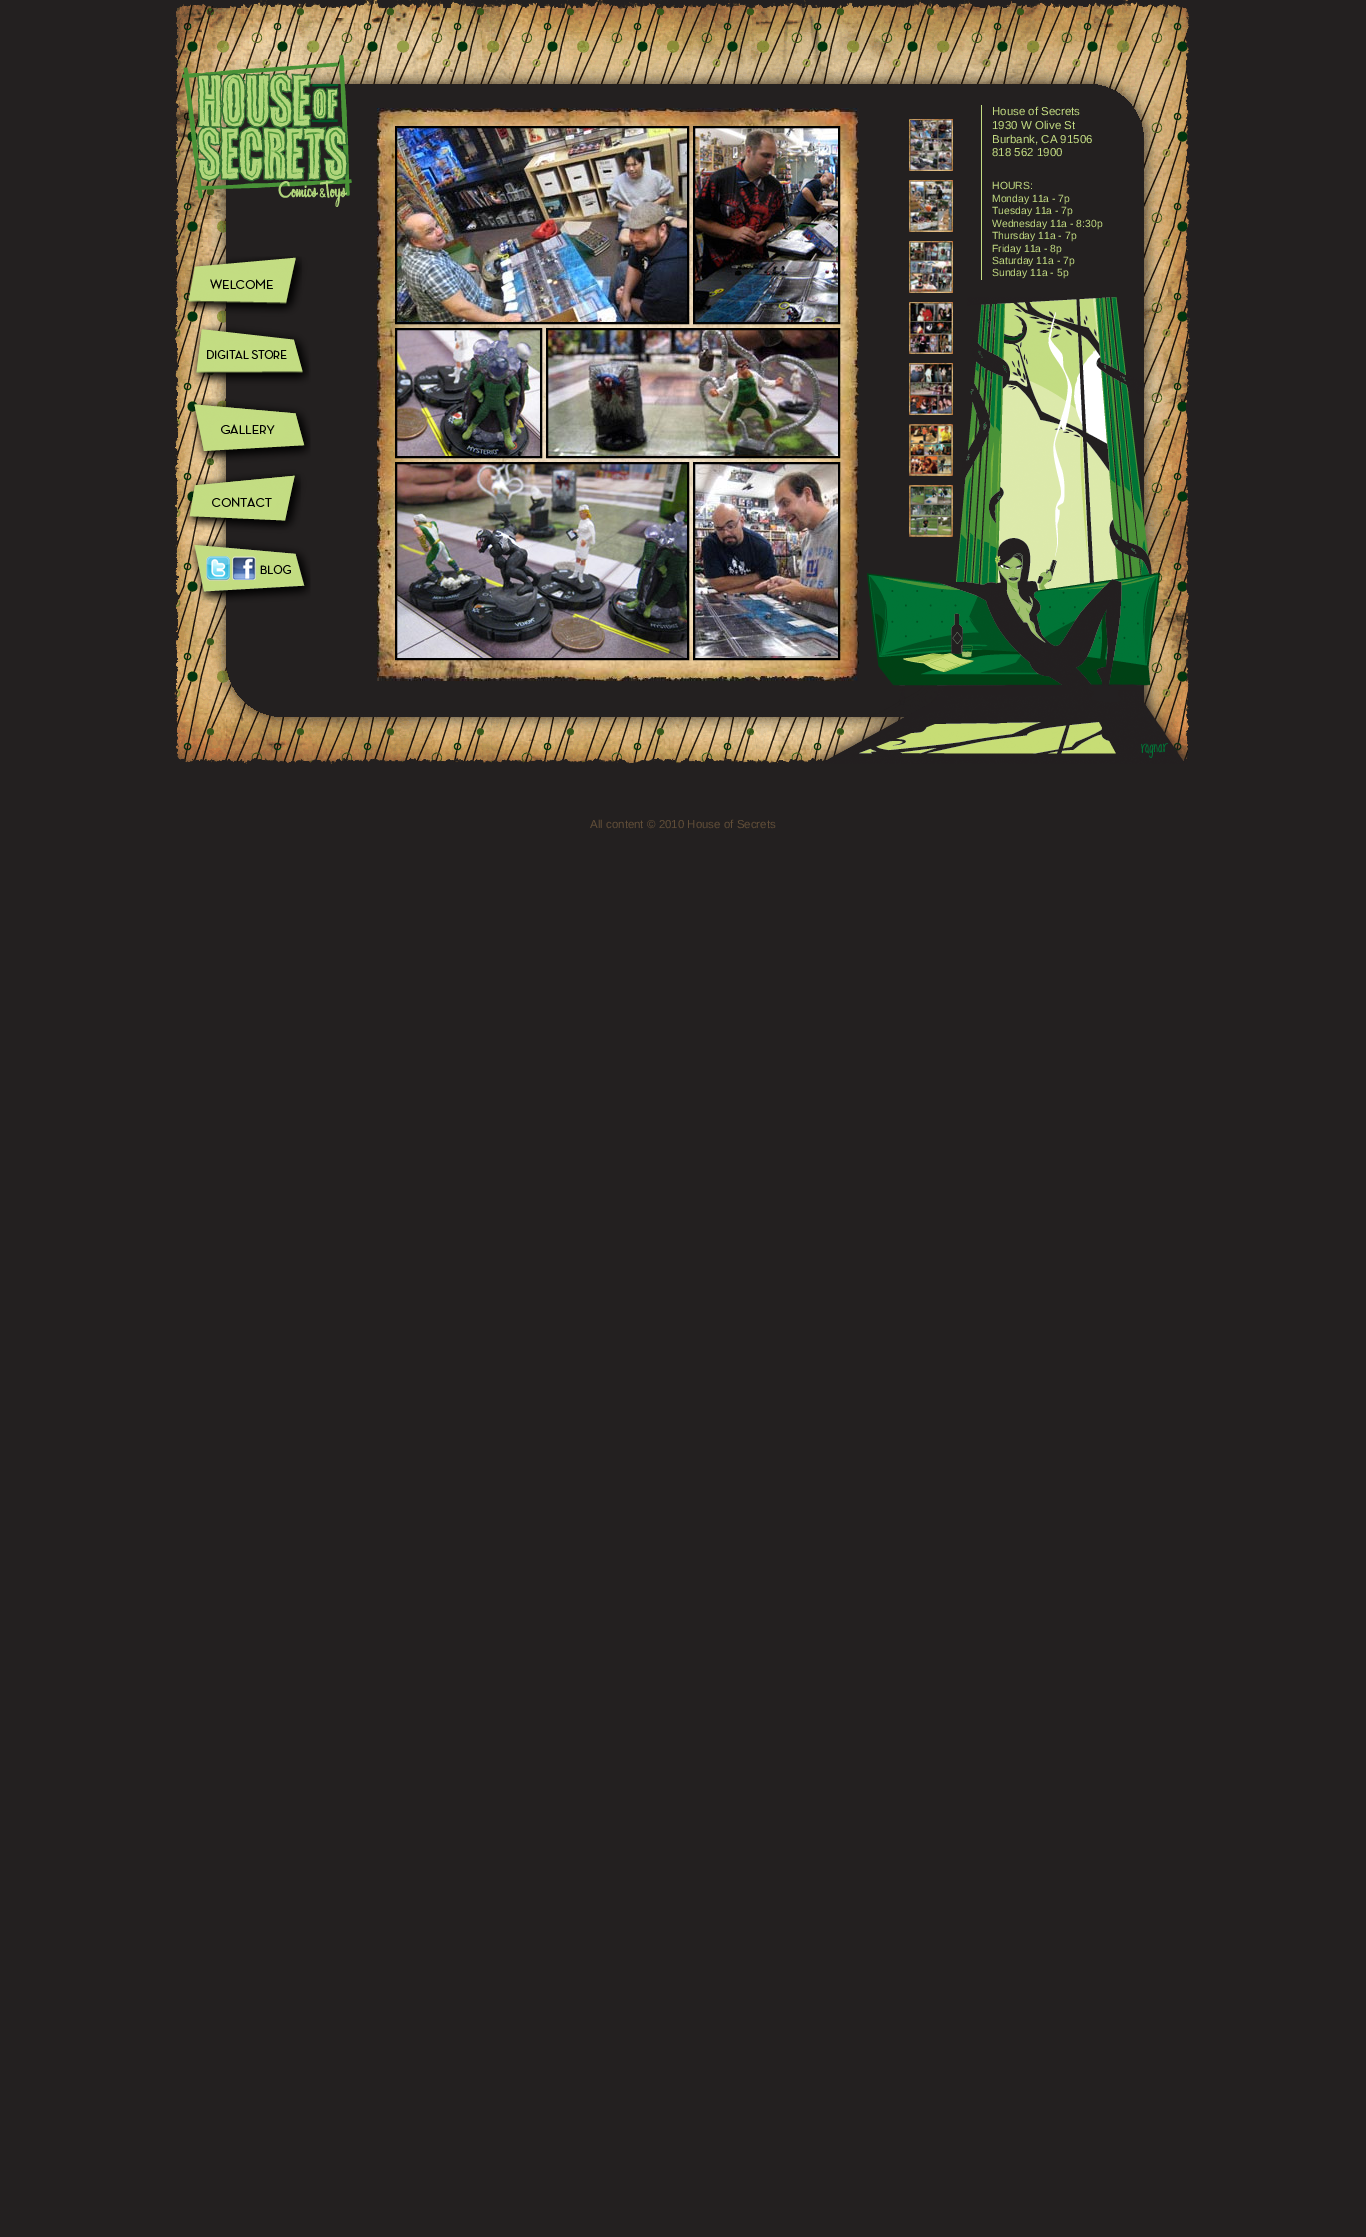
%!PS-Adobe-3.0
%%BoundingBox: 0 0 1366 2237
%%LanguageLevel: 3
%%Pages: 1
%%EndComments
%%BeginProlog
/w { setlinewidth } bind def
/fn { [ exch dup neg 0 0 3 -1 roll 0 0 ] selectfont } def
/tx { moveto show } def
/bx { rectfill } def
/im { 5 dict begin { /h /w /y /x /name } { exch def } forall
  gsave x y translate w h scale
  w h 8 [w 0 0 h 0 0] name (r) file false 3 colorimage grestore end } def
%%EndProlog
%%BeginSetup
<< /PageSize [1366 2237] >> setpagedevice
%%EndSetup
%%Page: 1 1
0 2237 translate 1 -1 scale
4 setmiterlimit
0.137 0.125 0.125 setrgbcolor
0 0 1366 2237 bx
(image0.raw) 174 0 1016 764 im
(image1.raw) 182 55 170 152 im
(image2.raw) 184 257 127 346 im
(image3.raw) 184 256 118 58 im
(image4.raw) 191 324 118 60 im
(image5.raw) 189 399 121 64 im
(image6.raw) 184 474 117 56 im
(image7.raw) 189 539 121 64 im
(image8.raw) 377 108 482 573 im
(image9.raw) 397 128 290 194 im
0 setgray
2 w
396 127 292 196 rectstroke
(image22.raw) 812 297 376 467 im
(image10.raw) 695 128 143 194 im
694 127 145 196 rectstroke
(image11.raw) 397 330 143 126 im
396 329 145 128 rectstroke
(image12.raw) 548 330 290 126 im
547 329 292 128 rectstroke
(image13.raw) 397 464 290 194 im
396 463 292 196 rectstroke
(image14.raw) 695 464 143 194 im
694 463 145 196 rectstroke
(image15.raw) 909 119 44 52 im
(image16.raw) 909 180 44 52 im
(image17.raw) 909 241 44 52 im
(image18.raw) 909 302 44 52 im
(image19.raw) 909 363 44 52 im
(image20.raw) 909 424 44 52 im
(image21.raw) 909 485 44 52 im
0.765 0.863 0.51 setrgbcolor
981 105 1 175 bx
/LiberationSans-Regular 11.5 fn
(House of Secrets) 992 115 tx
(1930 W Olive St) 992 129 tx
(Burbank, CA 91506) 992 143 tx
(818 562 1900) 992 156 tx
/LiberationSans-Regular 10.4 fn
(HOURS:) 992 189 tx
(Monday 11a - 7p) 992 202 tx
(Tuesday 11a - 7p) 992 214 tx
(Wednesday 11a - 8:30p) 992 227 tx
(Thursday 11a - 7p) 992 239 tx
(Friday 11a - 8p) 992 252 tx
(Saturday 11a - 7p) 992 264 tx
(Sunday 11a - 5p) 992 276 tx
/LiberationSans-Regular 11.5 fn
0.38 0.306 0.22 setrgbcolor
(All content © 2010 House of Secrets) 590 828 tx
showpage
%%EOF
